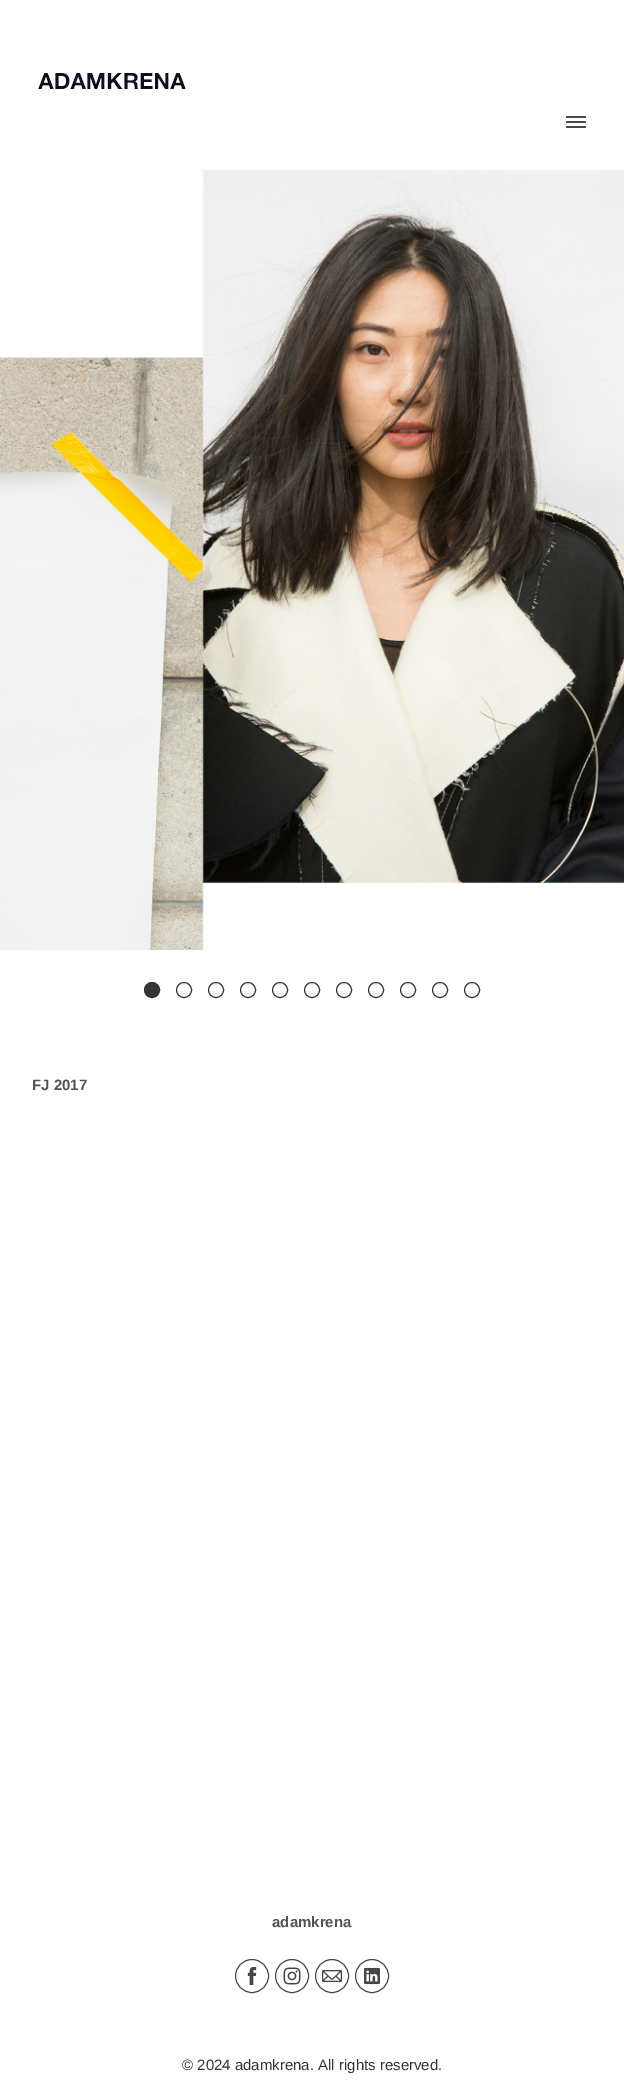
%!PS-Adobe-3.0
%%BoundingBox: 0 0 624 2094
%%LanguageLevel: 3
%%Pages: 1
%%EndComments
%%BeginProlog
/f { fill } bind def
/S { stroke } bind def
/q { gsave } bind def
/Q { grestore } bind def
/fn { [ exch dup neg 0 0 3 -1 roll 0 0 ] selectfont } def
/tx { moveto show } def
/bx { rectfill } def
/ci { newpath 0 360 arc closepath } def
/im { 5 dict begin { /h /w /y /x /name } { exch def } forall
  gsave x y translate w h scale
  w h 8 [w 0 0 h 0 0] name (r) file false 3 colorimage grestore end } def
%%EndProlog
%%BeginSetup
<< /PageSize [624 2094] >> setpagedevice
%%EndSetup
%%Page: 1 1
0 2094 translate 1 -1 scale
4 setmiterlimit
1 setgray
0 0 624 2094 bx
(image0.raw) 32 72 160 24 im
(image1.raw) 566 116 21 12 im
(image2.raw) 0 170 624 780 im
0.204 setgray
152 990 7.5 ci q f Q
S
184 990 7.5 ci S
216 990 7.5 ci S
248 990 7.5 ci S
280 990 7.5 ci S
312 990 7.5 ci S
344 990 7.5 ci S
376 990 7.5 ci S
408 990 7.5 ci S
440 990 7.5 ci S
472 990 7.5 ci S
/LiberationSans-Bold 15 fn
0.325 setgray
(FJ 2017) 32 1090 tx
(adamkrena) 272 1927 tx
0.278 0.278 0.294 setrgbcolor
252 1976 16.5 ci S
(image3.raw) 247 1967 10 18 im
292 1976 16.5 ci S
(image4.raw) 283 1967 18 18 im
332 1976 16.5 ci S
(image5.raw) 322 1970 20 12 im
372 1976 16.5 ci S
(image6.raw) 364 1967 16 18 im
/LiberationSans-Regular 15 fn
0.204 setgray
(© 2024 adamkrena. All rights reserved.) 182 2070 tx
showpage
%%EOF
